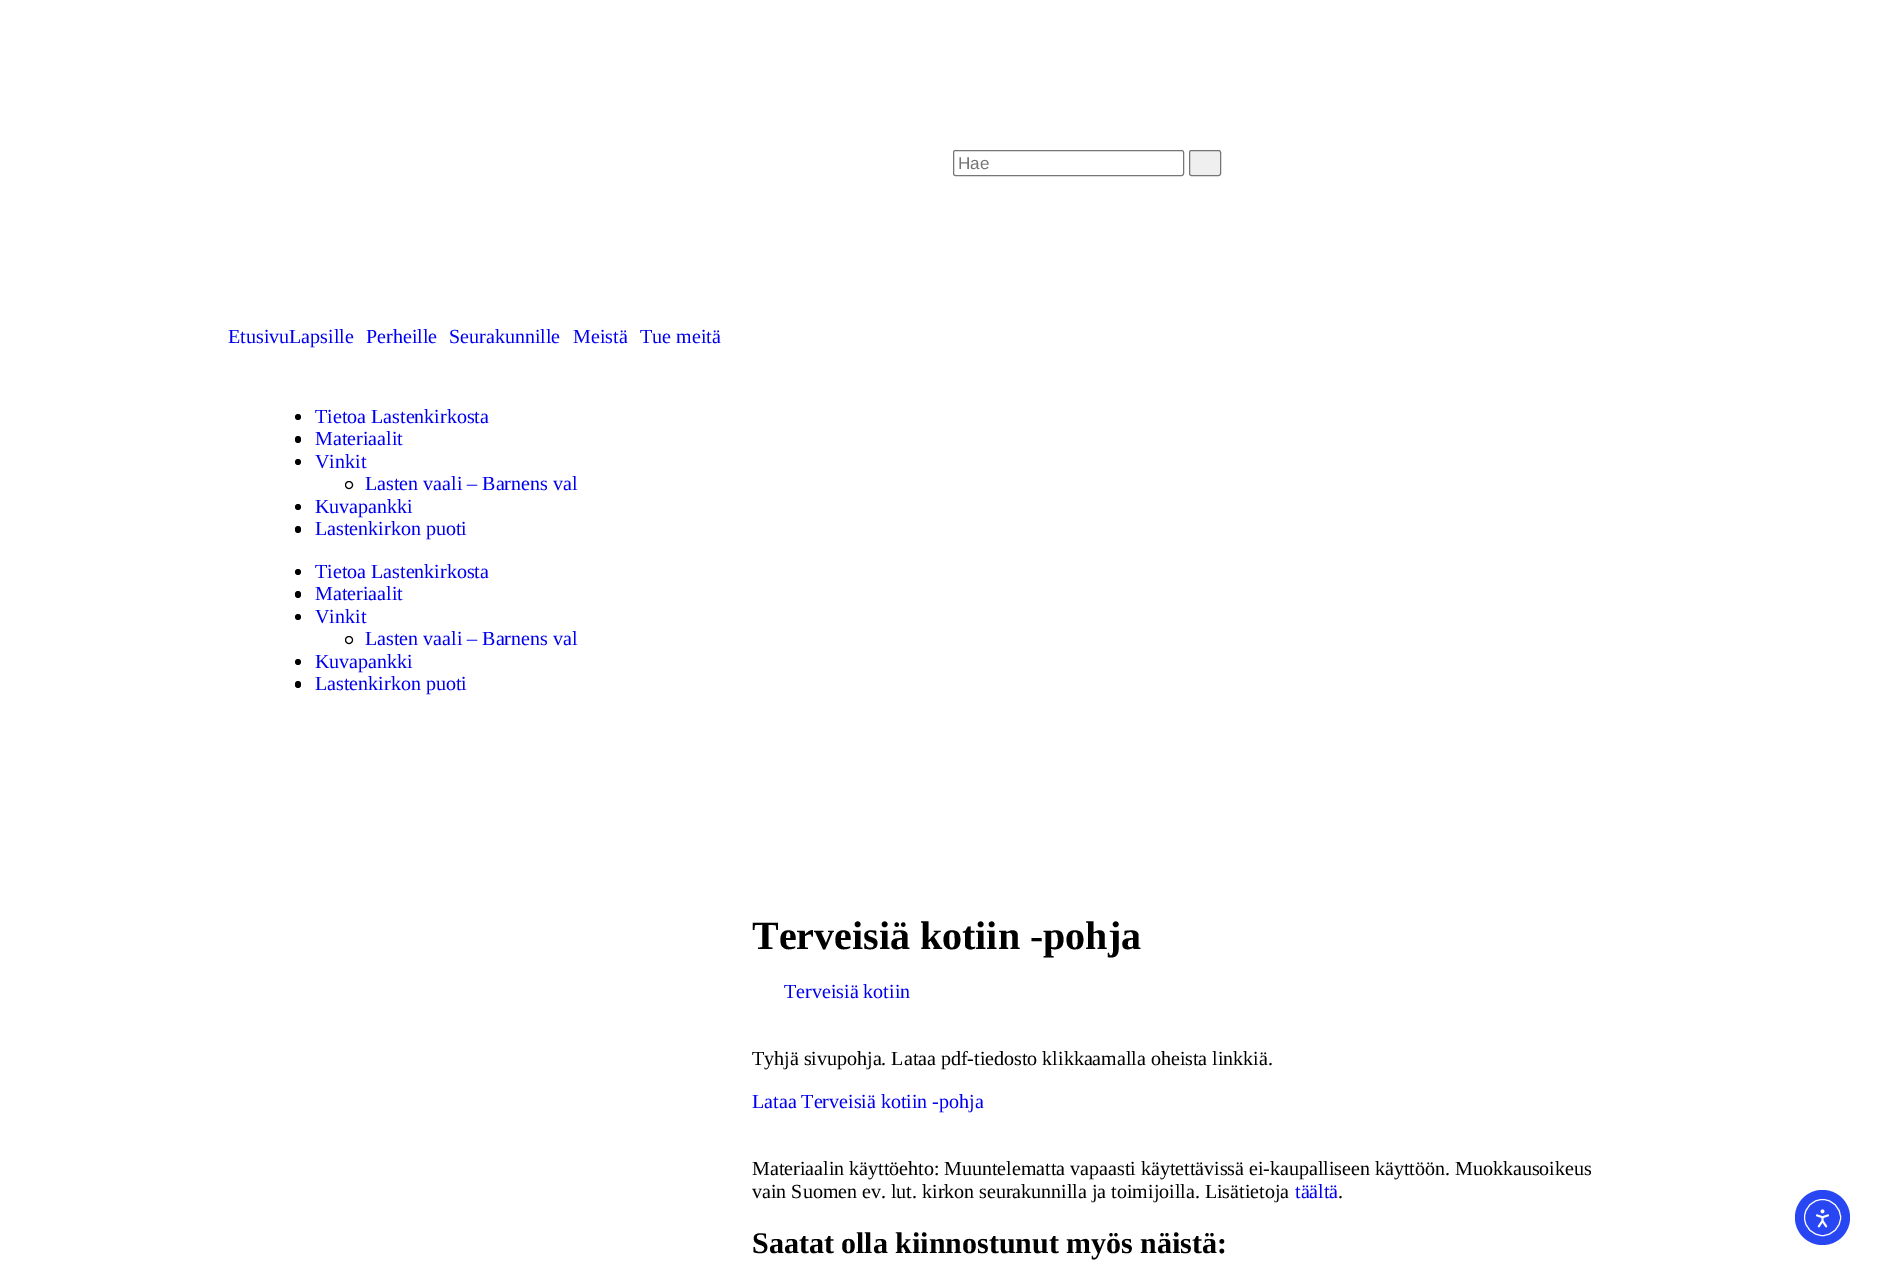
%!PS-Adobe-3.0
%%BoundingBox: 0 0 1879 1275
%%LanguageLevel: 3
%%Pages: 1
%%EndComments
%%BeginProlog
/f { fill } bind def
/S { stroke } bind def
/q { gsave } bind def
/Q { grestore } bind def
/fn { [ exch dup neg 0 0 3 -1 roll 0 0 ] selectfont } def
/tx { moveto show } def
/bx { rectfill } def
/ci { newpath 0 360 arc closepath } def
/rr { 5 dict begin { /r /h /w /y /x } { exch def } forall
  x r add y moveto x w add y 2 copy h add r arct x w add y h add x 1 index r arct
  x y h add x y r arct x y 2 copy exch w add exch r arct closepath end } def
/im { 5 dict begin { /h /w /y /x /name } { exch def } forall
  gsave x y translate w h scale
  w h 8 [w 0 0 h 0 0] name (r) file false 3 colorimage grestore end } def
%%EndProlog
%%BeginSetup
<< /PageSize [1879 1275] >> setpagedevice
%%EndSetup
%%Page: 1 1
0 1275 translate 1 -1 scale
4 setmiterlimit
1 setgray
0 0 1879 1275 bx
0.463 setgray
953.5 150.5 230 25 2 rr S
/LiberationSans-Regular 17 fn
0.459 setgray
(Hae) 958 169 tx
0.937 setgray
1189.5 150.5 31 25 2 rr q f Q
0.463 setgray
S
/LiberationSerif-Regular 20 fn
0 0 0.933 setrgbcolor
(EtusivuLapsille) 228 343 tx
(Perheille) 366 343 tx
(Seurakunnille) 449 343 tx
(Meistä) 573 343 tx
(Tue meitä) 640 343 tx
0 setgray
298 417 3 ci f
0 0 0.933 setrgbcolor
(Tietoa Lastenkirkosta) 315 423 tx
0 setgray
295 436 6 7 3 rr f
0 0 0.933 setrgbcolor
(Materiaalit) 315 445 tx
0 setgray
298 462 3 ci f
0 0 0.933 setrgbcolor
(Vinkit) 315 468 tx
0 setgray
349 485 3.5 ci S
0 0 0.933 setrgbcolor
(Lasten vaali – Barnens val) 365 490 tx
0 setgray
298 507 3 ci f
0 0 0.933 setrgbcolor
(Kuvapankki) 315 513 tx
0 setgray
295 526 6 7 3 rr f
0 0 0.933 setrgbcolor
(Lastenkirkon puoti) 315 535 tx
0 setgray
298 572 3 ci f
0 0 0.933 setrgbcolor
(Tietoa Lastenkirkosta) 315 578 tx
0 setgray
295 591 6 7 3 rr f
0 0 0.933 setrgbcolor
(Materiaalit) 315 600 tx
0 setgray
298 617 3 ci f
0 0 0.933 setrgbcolor
(Vinkit) 315 623 tx
0 setgray
349 640 3.5 ci S
0 0 0.933 setrgbcolor
(Lasten vaali – Barnens val) 365 645 tx
0 setgray
298 662 3 ci f
0 0 0.933 setrgbcolor
(Kuvapankki) 315 668 tx
0 setgray
295 681 6 7 3 rr f
0 0 0.933 setrgbcolor
(Lastenkirkon puoti) 315 690 tx
/LiberationSerif-Bold 40 fn
0 setgray
(Terveisiä kotiin -pohja) 752 949 tx
/LiberationSerif-Regular 20 fn
0 0 0.933 setrgbcolor
(Terveisiä kotiin) 784 998 tx
0 setgray
(Tyhjä sivupohja. Lataa pdf-tiedosto klikkaamalla oheista linkkiä.) 752 1065 tx
0 0 0.933 setrgbcolor
(Lataa Terveisiä kotiin -pohja) 752 1108 tx
0 setgray
(Materiaalin käyttöehto: Muuntelematta vapaasti käytettävissä ei-kaupalliseen käyttöön. Muokkausoikeus) 752 1175 tx
(vain Suomen ev. lut. kirkon seurakunnilla ja toimijoilla. Lisätietoja) 752 1198 tx
0 0 0.933 setrgbcolor
(täältä) 1295 1198 tx
0 setgray
(.) 1338 1198 tx
/LiberationSerif-Bold 30 fn
(Saatat olla kiinnostunut myös näistä:) 752 1253 tx
0.157 0.278 0.953 setrgbcolor
1822.5 1217.5 27.5 ci f
1 setgray
1822.5 1217.5 18 ci S
(image0.raw) 1815 1209 14 19 im
showpage
%%EOF
